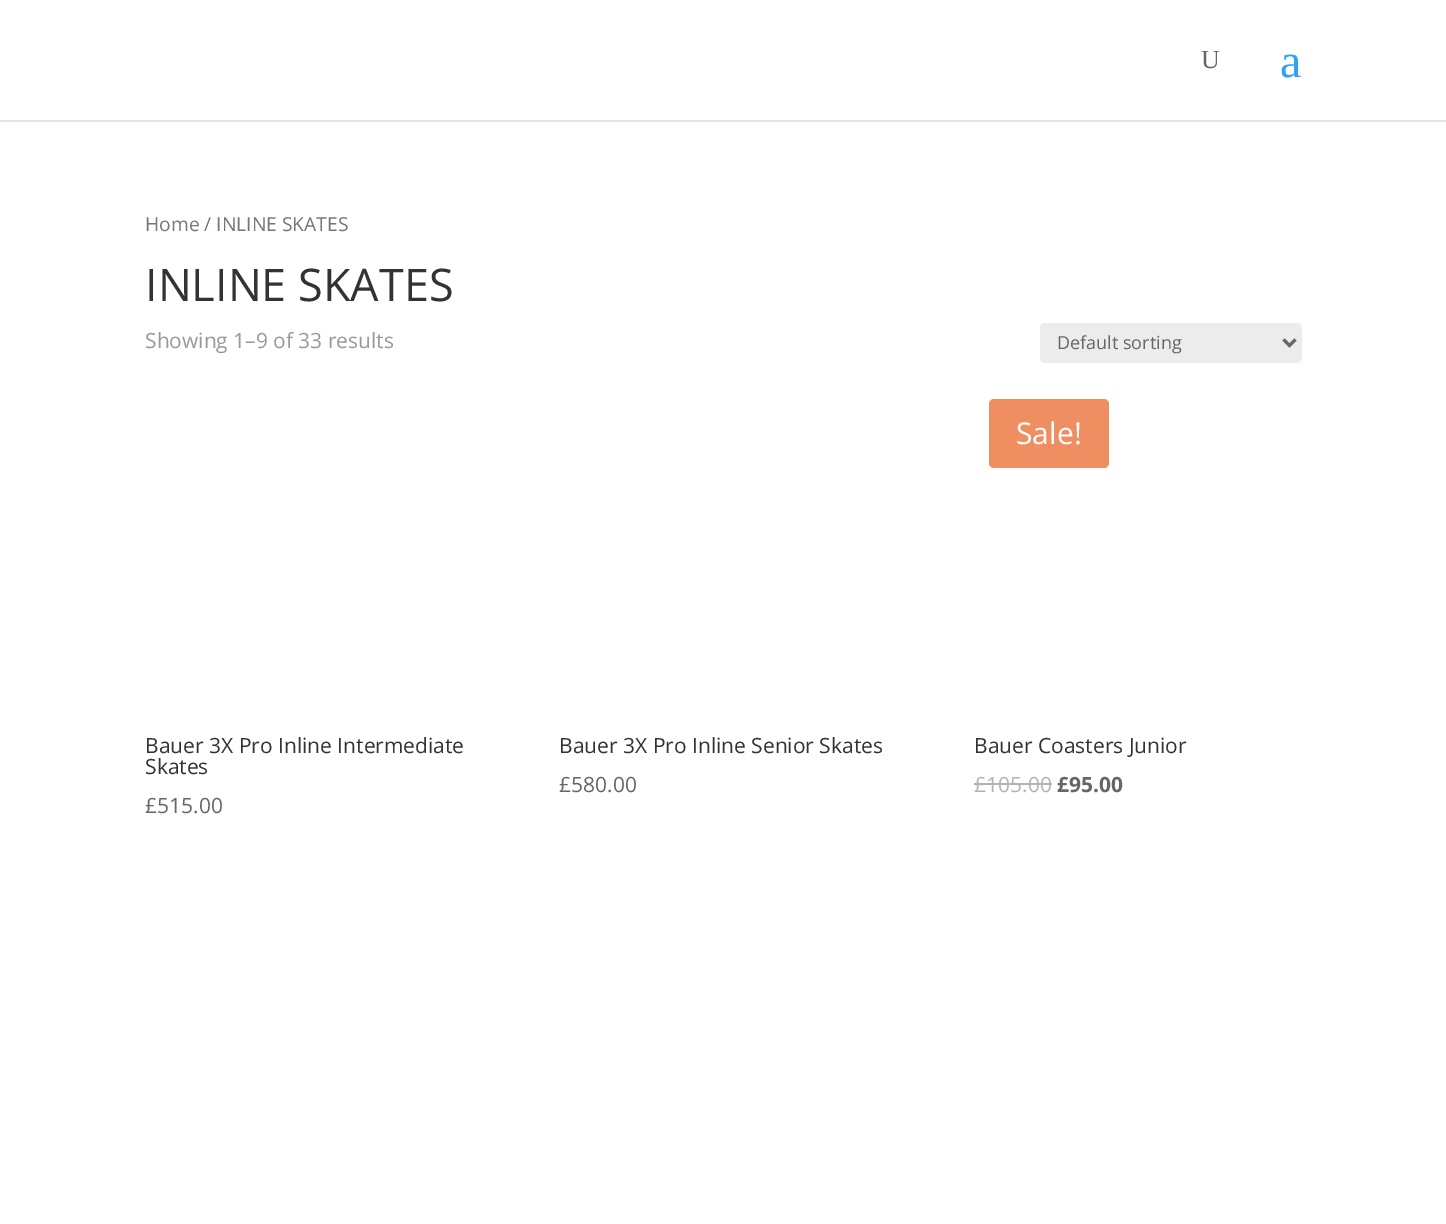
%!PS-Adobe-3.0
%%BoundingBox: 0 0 1446 1224
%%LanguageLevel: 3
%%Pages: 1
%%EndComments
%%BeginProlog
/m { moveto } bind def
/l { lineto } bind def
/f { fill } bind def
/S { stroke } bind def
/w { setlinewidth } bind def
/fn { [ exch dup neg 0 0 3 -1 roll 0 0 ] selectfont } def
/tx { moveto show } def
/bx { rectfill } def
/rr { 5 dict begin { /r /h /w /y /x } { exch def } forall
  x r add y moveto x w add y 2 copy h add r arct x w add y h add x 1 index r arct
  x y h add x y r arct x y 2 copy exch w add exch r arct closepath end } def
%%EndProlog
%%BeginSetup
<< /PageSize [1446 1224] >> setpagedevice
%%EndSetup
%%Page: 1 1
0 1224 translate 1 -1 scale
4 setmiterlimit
1 setgray
0 0 1446 1224 bx
0.902 setgray
0 120 1446 2 bx
/LiberationSerif-Regular 26 fn
0.4 setgray
(U) 1201 68 tx
/LiberationSerif-Regular 48 fn
0.18 0.639 0.949 setrgbcolor
(a) 1280 77 tx
/OpenSans-Regular 19.25 fn
0.463 setgray
(Home / INLINE SKATES) 145 231 tx
/OpenSans-Regular 45 fn
0.2 setgray
(INLINE SKATES) 145 301 tx
/OpenSans-Regular 21 fn
0.6 setgray
(Showing 1–9 of 33 results) 145 348 tx
0.925 setgray
1040 323 262 40 5 rr f
0.4 setgray
3 w
1283.5 339.5 m 1289.5 345.5 l 1295.5 339.5 l S
/OpenSans-Regular 18 fn
(Default sorting) 1057 349 tx
/OpenSans-Regular 21 fn
0.2 setgray
(Bauer 3X Pro Inline Intermediate) 145 753 tx
(Skates) 145 774 tx
0.4 setgray
(£515.00) 145 813 tx
0.2 setgray
(Bauer 3X Pro Inline Senior Skates) 559 753 tx
0.4 setgray
(£580.00) 559 792 tx
0.937 0.561 0.38 setrgbcolor
989 399 120 69 5 rr f
/OpenSans-Regular 30 fn
1 setgray
(Sale!) 1016 444 tx
/OpenSans-Regular 21 fn
0.2 setgray
(Bauer Coasters Junior) 974 753 tx
0.702 setgray
(£105.00) 974 792 tx
974 783 78 2 bx
/OpenSans-Bold 21 fn
0.4 setgray
(£95.00) 1057 792 tx
showpage
%%EOF
